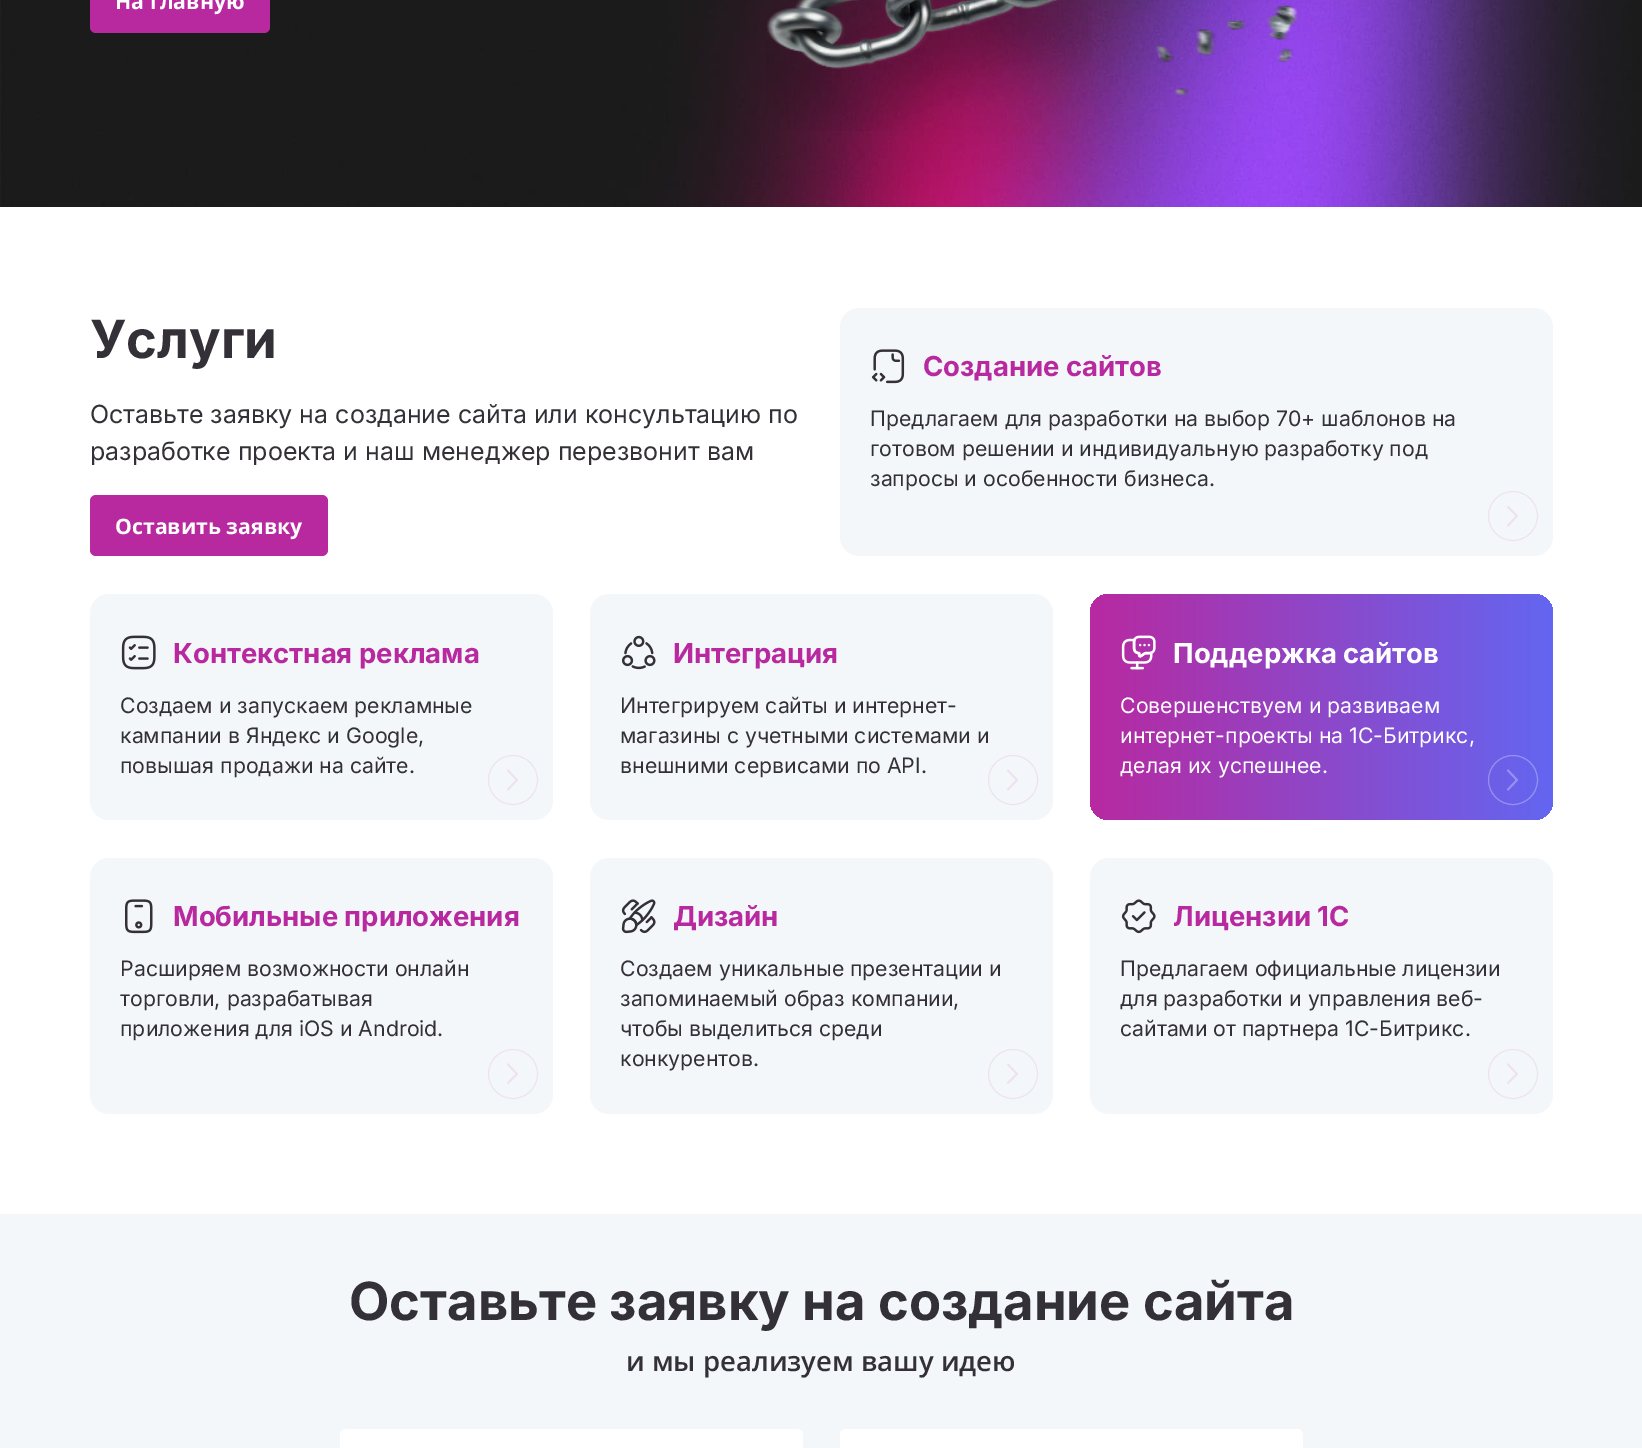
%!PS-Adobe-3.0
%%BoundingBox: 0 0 1642 1448
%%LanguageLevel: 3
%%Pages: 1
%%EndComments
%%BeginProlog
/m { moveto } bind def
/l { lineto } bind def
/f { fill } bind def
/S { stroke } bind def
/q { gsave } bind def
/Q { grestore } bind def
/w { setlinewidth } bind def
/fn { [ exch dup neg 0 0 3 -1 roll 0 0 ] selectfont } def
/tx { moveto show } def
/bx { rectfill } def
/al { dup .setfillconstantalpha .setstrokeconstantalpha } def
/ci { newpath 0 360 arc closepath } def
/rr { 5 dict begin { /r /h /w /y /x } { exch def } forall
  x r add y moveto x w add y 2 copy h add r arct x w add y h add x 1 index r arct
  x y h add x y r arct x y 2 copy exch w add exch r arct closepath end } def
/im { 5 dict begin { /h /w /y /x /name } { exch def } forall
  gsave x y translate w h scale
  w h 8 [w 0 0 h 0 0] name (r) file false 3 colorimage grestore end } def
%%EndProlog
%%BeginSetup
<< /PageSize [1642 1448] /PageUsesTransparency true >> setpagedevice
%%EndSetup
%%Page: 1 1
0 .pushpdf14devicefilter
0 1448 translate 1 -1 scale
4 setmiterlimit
1 setgray
0 0 1642 1448 bx
(image0.raw) 0 0 1642 207 im
0.722 0.161 0.627 setrgbcolor
90 -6 180 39 6 rr f
/OpenSans-Bold 21.25 fn
1 setgray
(На главную) 115 9 tx
(image1.raw) 766 0 326 131 im
(image2.raw) 1155 4 144 92 im
/Inter-Bold 52.5 fn
0.204 0.188 0.216 setrgbcolor
(Услуги) 90 358 tx
/Inter-Regular 25 fn
(Оставьте заявку на создание сайта или консультацию по) 90 423 tx
(разработке проекта и наш менеджер перезвонит вам) 90 460 tx
0.722 0.161 0.627 setrgbcolor
90 495 238 61 6 rr f
/OpenSans-Bold 21.25 fn
1 setgray
(Оставить заявку) 115 534 tx
0.957 0.969 0.98 setrgbcolor
840 308 713 248 19 rr f
(image3.raw) 871 349 34 35 im
/Inter-Bold 27.5 fn
0.722 0.161 0.627 setrgbcolor
(Создание сайтов) 923 376 tx
/Inter-Regular 21.25 fn
0.204 0.188 0.216 setrgbcolor
(Предлагаем для разработки на выбор 70+ шаблонов на) 870 426 tx
(готовом решении и индивидуальную разработку под) 870 456 tx
(запросы и особенности бизнеса.) 870 486 tx
0.933 0.886 0.945 setrgbcolor
1513 516 24.5 ci S
1.9 w
1 setlinecap
1 setlinejoin
1508 507 m 1517 516 l 1508 525.5 l S
0.957 0.969 0.98 setrgbcolor
90 594 463 226 19 rr f
(image4.raw) 121 635 35 35 im
/Inter-Bold 27.5 fn
0.722 0.161 0.627 setrgbcolor
(Контекстная реклама) 173 663 tx
/Inter-Regular 21.25 fn
0.204 0.188 0.216 setrgbcolor
(Создаем и запускаем рекламные) 120 713 tx
(кампании в Яндекс и Google,) 120 743 tx
(повышая продажи на сайте.) 120 773 tx
0.933 0.886 0.945 setrgbcolor
1 w
0 setlinecap
0 setlinejoin
513 780 24.5 ci S
1.9 w
1 setlinecap
1 setlinejoin
508 770.5 m 517 780 l 508 789.5 l S
0.957 0.969 0.98 setrgbcolor
590 594 463 226 19 rr f
(image5.raw) 621 635 35 35 im
/Inter-Bold 27.5 fn
0.722 0.161 0.627 setrgbcolor
(Интеграция) 673 663 tx
/Inter-Regular 21.25 fn
0.204 0.188 0.216 setrgbcolor
(Интегрируем сайты и интернет-) 620 713 tx
(магазины с учетными системами и) 620 743 tx
(внешними сервисами по API.) 620 773 tx
0.933 0.886 0.945 setrgbcolor
1 w
0 setlinecap
0 setlinejoin
1013 780 24.5 ci S
1.9 w
1 setlinecap
1 setlinejoin
1008 770.5 m 1017 780 l 1008 789.5 l S
q 1090 594 463 226 19 rr clip newpath
<< /ShadingType 2 /ColorSpace /DeviceRGB /Coords [1090 707 1553 707] /Extend [true true] /Function << /FunctionType 2 /Domain [0 1] /C0 [0.722 0.161 0.627] /C1 [0.388 0.4 0.945] /N 1 >> >> shfill Q
(image6.raw) 1121 635 35 35 im
/Inter-Bold 27.5 fn
1 setgray
(Поддержка сайтов) 1173 663 tx
/Inter-Regular 21.25 fn
(Совершенствуем и развиваем) 1120 713 tx
(интернет-проекты на 1С-Битрикс,) 1120 743 tx
(делая их успешнее.) 1120 773 tx
0.3 al
1 w
0 setlinecap
0 setlinejoin
1513 780 24.5 ci S
1 al
0.592 0.565 0.941 setrgbcolor
1.9 w
1 setlinecap
1 setlinejoin
1508 770.5 m 1517 780 l 1508 789.5 l S
0.957 0.969 0.98 setrgbcolor
90 858 463 256 19 rr f
(image7.raw) 125 899 28 35 im
/Inter-Bold 27.5 fn
0.722 0.161 0.627 setrgbcolor
(Мобильные приложения) 173 926 tx
/Inter-Regular 21.25 fn
0.204 0.188 0.216 setrgbcolor
(Расширяем возможности онлайн) 120 976 tx
(торговли, разрабатывая) 120 1006 tx
(приложения для iOS и Android.) 120 1036 tx
0.933 0.886 0.945 setrgbcolor
1 w
0 setlinecap
0 setlinejoin
513 1074 24.5 ci S
1.9 w
1 setlinecap
1 setlinejoin
508 1064.5 m 517 1074 l 508 1083 l S
0.957 0.969 0.98 setrgbcolor
590 858 463 256 19 rr f
(image8.raw) 621 899 35 35 im
/Inter-Bold 27.5 fn
0.722 0.161 0.627 setrgbcolor
(Дизайн) 673 926 tx
/Inter-Regular 21.25 fn
0.204 0.188 0.216 setrgbcolor
(Создаем уникальные презентации и) 620 976 tx
(запоминаемый образ компании,) 620 1006 tx
(чтобы выделиться среди) 620 1036 tx
(конкурентов.) 620 1066 tx
0.933 0.886 0.945 setrgbcolor
1 w
0 setlinecap
0 setlinejoin
1013 1074 24.5 ci S
1.9 w
1 setlinecap
1 setlinejoin
1008 1064.5 m 1017 1074 l 1008 1083 l S
0.957 0.969 0.98 setrgbcolor
1090 858 463 256 19 rr f
(image9.raw) 1121 899 35 35 im
/Inter-Bold 27.5 fn
0.722 0.161 0.627 setrgbcolor
(Лицензии 1С) 1173 926 tx
/Inter-Regular 21.25 fn
0.204 0.188 0.216 setrgbcolor
(Предлагаем официальные лицензии) 1120 976 tx
(для разработки и управления веб-) 1120 1006 tx
(сайтами от партнера 1С-Битрикс.) 1120 1036 tx
0.933 0.886 0.945 setrgbcolor
1 w
0 setlinecap
0 setlinejoin
1513 1074 24.5 ci S
1.9 w
1 setlinecap
1 setlinejoin
1508 1064.5 m 1517 1074 l 1508 1083 l S
0.957 0.969 0.98 setrgbcolor
0 1214 1642 234 bx
/Inter-Bold 52.5 fn
0.204 0.188 0.216 setrgbcolor
(Оставьте заявку на создание сайта) 349 1320 tx
/OpenSans-SemiBold 27.5 fn
(и мы реализуем вашу идею) 626 1371 tx
1 setgray
340 1429 463 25 6 rr f
840 1429 463 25 6 rr f
.poppdf14devicefilter showpage
%%EOF
